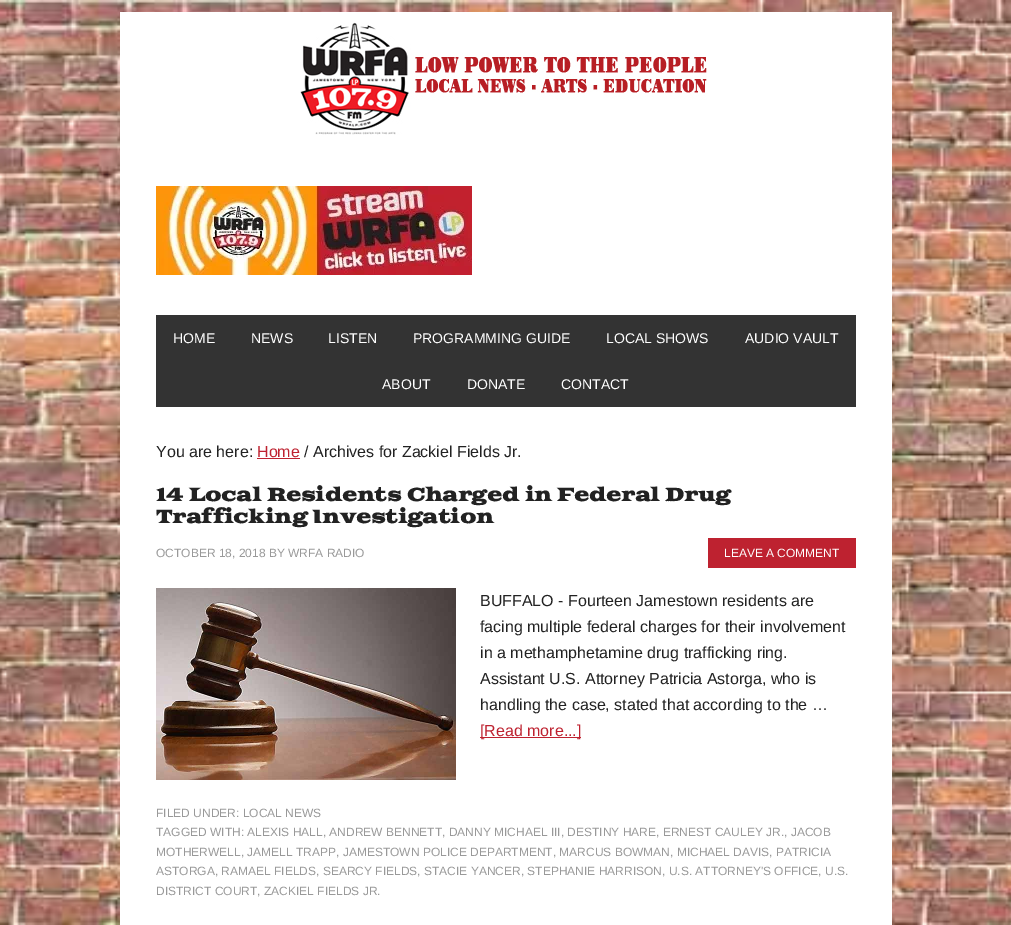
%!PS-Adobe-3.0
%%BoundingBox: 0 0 1011 925
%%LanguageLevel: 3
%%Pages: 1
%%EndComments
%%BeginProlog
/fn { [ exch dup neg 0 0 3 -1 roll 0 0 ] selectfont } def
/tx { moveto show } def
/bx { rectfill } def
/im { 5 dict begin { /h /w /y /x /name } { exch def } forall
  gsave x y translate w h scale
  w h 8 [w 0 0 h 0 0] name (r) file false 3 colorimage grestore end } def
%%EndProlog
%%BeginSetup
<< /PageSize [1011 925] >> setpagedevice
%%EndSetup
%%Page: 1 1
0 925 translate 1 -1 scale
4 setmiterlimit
1 setgray
0 0 1011 925 bx
(image0.raw) 0 0 1011 925 im
120 12 772 913 bx
(image1.raw) 300 22 407 113 im
(image2.raw) 156 186 316 89 im
0.2 setgray
156 315 700 92 bx
/LiberationSans-Regular 14 fn
1 setgray
(HOME) 173 343 tx
(NEWS) 251 343 tx
(LISTEN) 328 343 tx
(PROGRAMMING GUIDE) 413 343 tx
(LOCAL SHOWS) 606 343 tx
(AUDIO VAULT) 745 343 tx
(ABOUT) 382 389 tx
(DONATE) 467 389 tx
(CONTACT) 561 389 tx
/LiberationSans-Regular 16 fn
0.133 setgray
(You are here:) 156 457 tx
0.745 0.133 0.188 setrgbcolor
(Home) 257 457 tx
257 458 43 1 bx
0.133 setgray
(/ Archives for Zackiel Fields Jr.) 304 457 tx
/GoblinOne-Bold 18 fn
(14 Local Residents Charged in Federal Drug) 156 501 tx
(Trafficking Investigation) 156 523 tx
/LiberationSans-Regular 12 fn
0.6 setgray
(OCTOBER 18, 2018 BY WRFA RADIO) 156 557 tx
0.745 0.133 0.188 setrgbcolor
708 538 148 30 bx
1 setgray
(LEAVE A COMMENT) 724 557 tx
(image3.raw) 156 588 300 192 im
/LiberationSans-Regular 16 fn
0.133 setgray
(BUFFALO - Fourteen Jamestown residents are) 480 606 tx
(facing multiple federal charges for their involvement) 480 632 tx
(in a methamphetamine drug trafficking ring.) 480 658 tx
(Assistant U.S. Attorney Patricia Astorga, who is) 480 684 tx
(handling the case, stated that according to the …) 480 710 tx
0.745 0.133 0.188 setrgbcolor
480 737 101 1 bx
([Read more...]) 480 736 tx
/LiberationSans-Regular 12 fn
0.6 setgray
(FILED UNDER: LOCAL NEWS) 156 817 tx
(TAGGED WITH: ALEXIS HALL, ANDREW BENNETT, DANNY MICHAEL III, DESTINY HARE, ERNEST CAULEY JR., JACOB) 156 836 tx
(MOTHERWELL, JAMELL TRAPP, JAMESTOWN POLICE DEPARTMENT, MARCUS BOWMAN, MICHAEL DAVIS, PATRICIA) 156 856 tx
(ASTORGA, RAMAEL FIELDS, SEARCY FIELDS, STACIE YANCER, STEPHANIE HARRISON, U.S. ATTORNEY'S OFFICE, U.S.) 156 875 tx
(DISTRICT COURT, ZACKIEL FIELDS JR.) 156 895 tx
showpage
%%EOF
